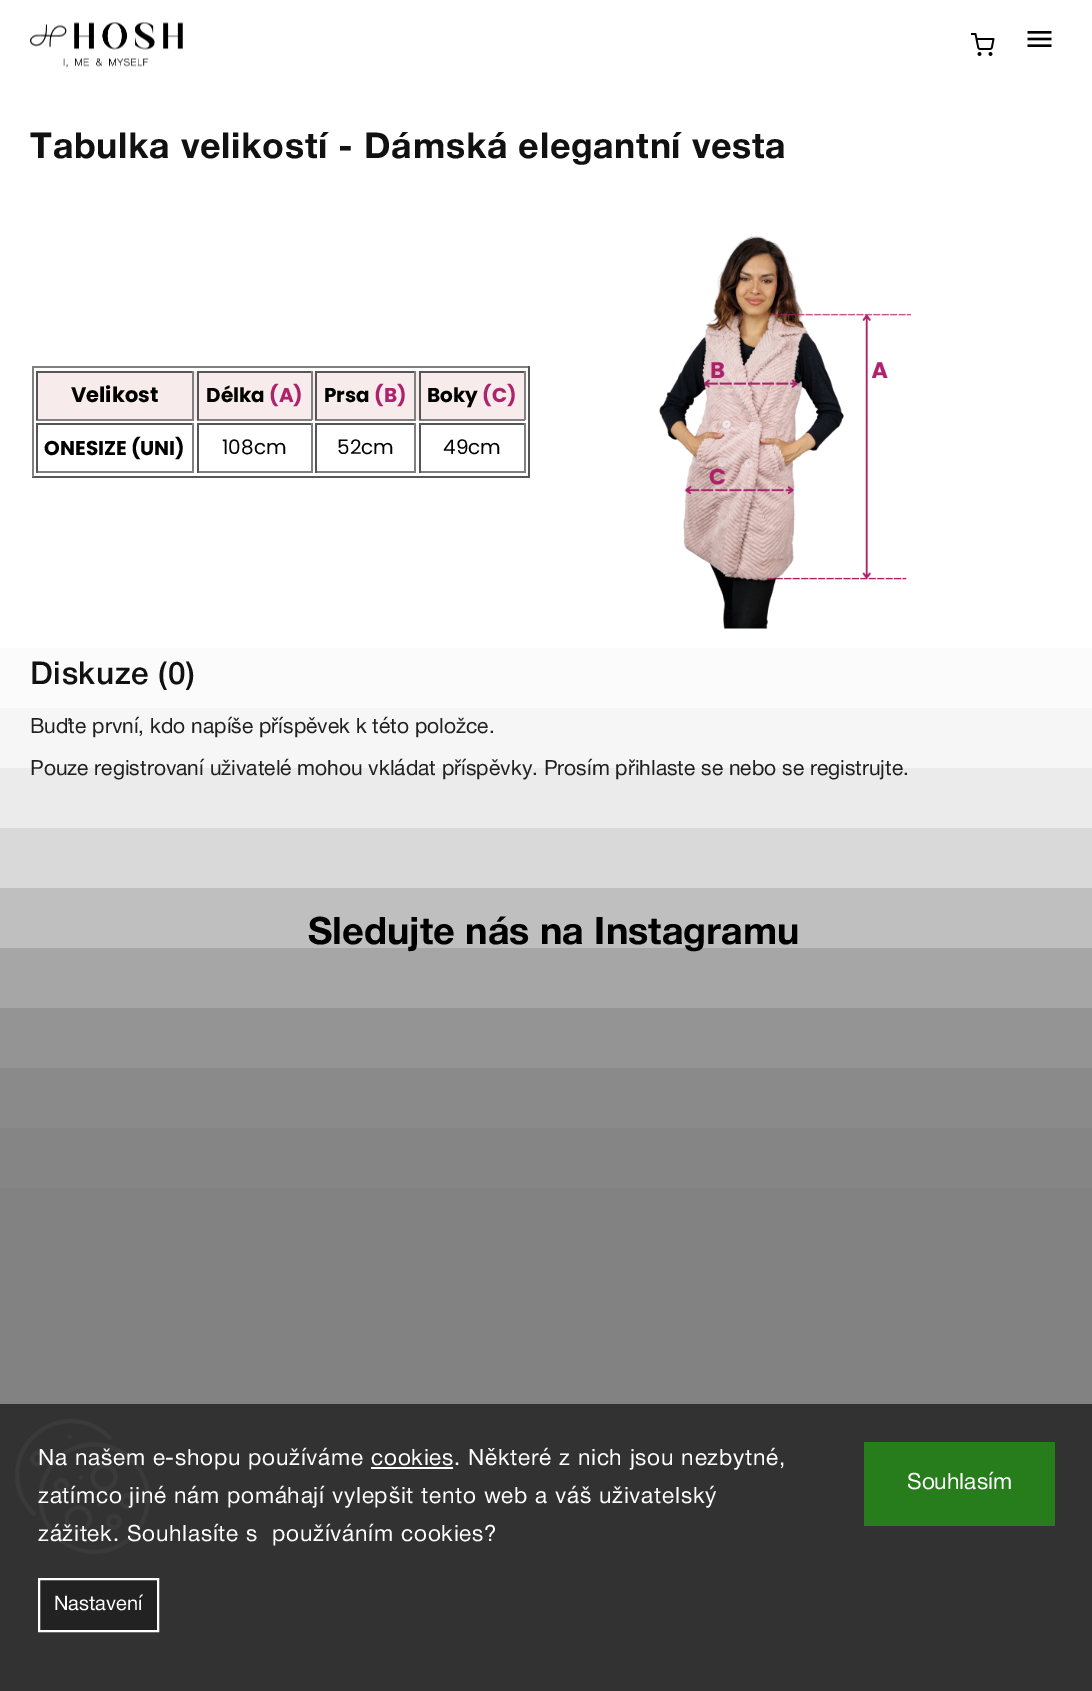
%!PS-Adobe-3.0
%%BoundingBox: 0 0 1092 1691
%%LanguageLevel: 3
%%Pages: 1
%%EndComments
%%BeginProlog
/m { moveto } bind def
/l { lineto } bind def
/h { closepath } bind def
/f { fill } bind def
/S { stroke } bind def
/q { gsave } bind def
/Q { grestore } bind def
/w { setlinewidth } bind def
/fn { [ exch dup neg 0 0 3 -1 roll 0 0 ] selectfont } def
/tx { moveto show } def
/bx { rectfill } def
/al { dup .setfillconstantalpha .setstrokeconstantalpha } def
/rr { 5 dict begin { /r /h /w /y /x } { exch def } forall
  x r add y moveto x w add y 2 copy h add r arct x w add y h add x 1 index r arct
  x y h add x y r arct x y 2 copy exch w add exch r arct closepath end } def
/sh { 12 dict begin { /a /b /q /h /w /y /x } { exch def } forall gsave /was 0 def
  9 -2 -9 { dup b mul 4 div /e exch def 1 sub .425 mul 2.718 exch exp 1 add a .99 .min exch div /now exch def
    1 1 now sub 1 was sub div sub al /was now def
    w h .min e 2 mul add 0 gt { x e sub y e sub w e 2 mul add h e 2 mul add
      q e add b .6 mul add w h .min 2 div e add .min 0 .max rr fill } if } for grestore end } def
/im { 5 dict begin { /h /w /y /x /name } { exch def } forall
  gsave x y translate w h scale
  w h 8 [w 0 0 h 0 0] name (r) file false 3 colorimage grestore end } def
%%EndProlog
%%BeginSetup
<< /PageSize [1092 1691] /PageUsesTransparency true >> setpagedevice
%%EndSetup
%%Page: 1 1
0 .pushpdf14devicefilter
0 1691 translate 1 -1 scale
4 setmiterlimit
1 setgray
0 0 1092 1691 bx
(image0.raw) 30 22 153 46 im
(image1.raw) 971 33 24 23 im
(image2.raw) 1027 31 25 16 im
/HelveticaNeue-Bold 35.7 fn
0.067 setgray
30 158 m 0.7 0 (Tabulka velikostí - Dámská elegantní vesta) ashow
0.502 setgray
32 366 498 2 bx
0.333 setgray
528 366 2 111 bx
32 476 498 2 bx
0.502 setgray
32 366 2 111 bx
0.969 0.922 0.922 setrgbcolor
38 371 486 49 bx
0.333 setgray
36 371 158 2 bx
0.502 setgray
192 371 2 49 bx
36 419 158 2 bx
0.333 setgray
36 371 2 49 bx
/Poppins-Bold 21 fn
0 setgray
(Velikost) 71 402 tx
0.333 setgray
197 371 115 2 bx
0.502 setgray
311 371 2 49 bx
197 419 115 2 bx
0.333 setgray
197 371 2 49 bx
/Poppins-Bold 20 fn
0 setgray
(Délka) 206 402 tx
0.678 0.133 0.424 setrgbcolor
(\(A\)) 269 402 tx
0.333 setgray
315 371 101 2 bx
0.502 setgray
414 371 2 49 bx
315 419 101 2 bx
0.333 setgray
315 371 2 49 bx
0 setgray
(Prsa) 324 402 tx
0.678 0.133 0.424 setrgbcolor
(\(B\)) 374 402 tx
0.333 setgray
419 371 106 2 bx
0.502 setgray
524 371 2 49 bx
419 419 106 2 bx
0.333 setgray
419 371 2 49 bx
0 setgray
(Boky) 427 402 tx
0.678 0.133 0.424 setrgbcolor
(\(C\)) 482 402 tx
0.333 setgray
36 423 158 2 bx
0.502 setgray
192 423 2 50 bx
36 471 158 2 bx
0.333 setgray
36 423 2 50 bx
0 setgray
(ONESIZE \(UNI\)) 44 455 tx
0.333 setgray
197 423 115 2 bx
0.502 setgray
311 423 2 50 bx
197 471 115 2 bx
0.333 setgray
197 423 2 50 bx
/Poppins-Regular 20 fn
0 setgray
(108cm) 222 454 tx
0.333 setgray
315 423 101 2 bx
0.502 setgray
414 423 2 50 bx
315 471 101 2 bx
0.333 setgray
315 423 2 50 bx
0 setgray
(52cm) 337 454 tx
0.333 setgray
419 423 106 2 bx
0.502 setgray
524 423 2 50 bx
419 471 106 2 bx
0.333 setgray
419 423 2 50 bx
0 setgray
(49cm) 443 454 tx
(image3.raw) 659 235 252 394 im
/HelveticaNeue-Medium 31.5 fn
0.067 setgray
30 684 m 0.6 0 (Diskuze \(0\)) ashow
/HelveticaNeue-Regular 21 fn
0.133 setgray
(Buďte první, kdo napíše příspěvek k této položce.) 30 733 tx
(Pouze registrovaní uživatelé mohou vkládat příspěvky. Prosím přihlaste se nebo se registrujte.) 30 775 tx
/HelveticaNeue-Bold 37.75 fn
0 setgray
(Sledujte nás na Instagramu) 308 944 tx
-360 918 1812 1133 0 120 0.5 sh
0.196 setgray
0 1404 1092 287 bx
(image4.raw) 15 1419 135 135 im
/HelveticaNeue-Regular 22.5 fn
1 setgray
38 1465 m 0.75 0 (Na našem e-shopu používáme cookies. Některé z nich jsou nezbytné,) ashow
371 1467 82 2 bx
38 1503 m 0.75 0 (zatímco jiné nám pomáhají vylepšit tento web a váš uživatelský) ashow
38 1541 m 0.75 0 (zážitek. Souhlasíte s  používáním cookies?) ashow
0.133 setgray
39 1579 m 158 1579 l 158 1631 l 39 1631 l h q f Q
1 setgray
2 w
S
/HelveticaNeue-Regular 20 fn
(Nastavení) 54 1610 tx
0.153 0.486 0.106 setrgbcolor
864 1442 191 84 bx
/HelveticaNeue-Regular 22.5 fn
1 setgray
(Souhlasím) 907 1489 tx
.poppdf14devicefilter showpage
%%EOF
